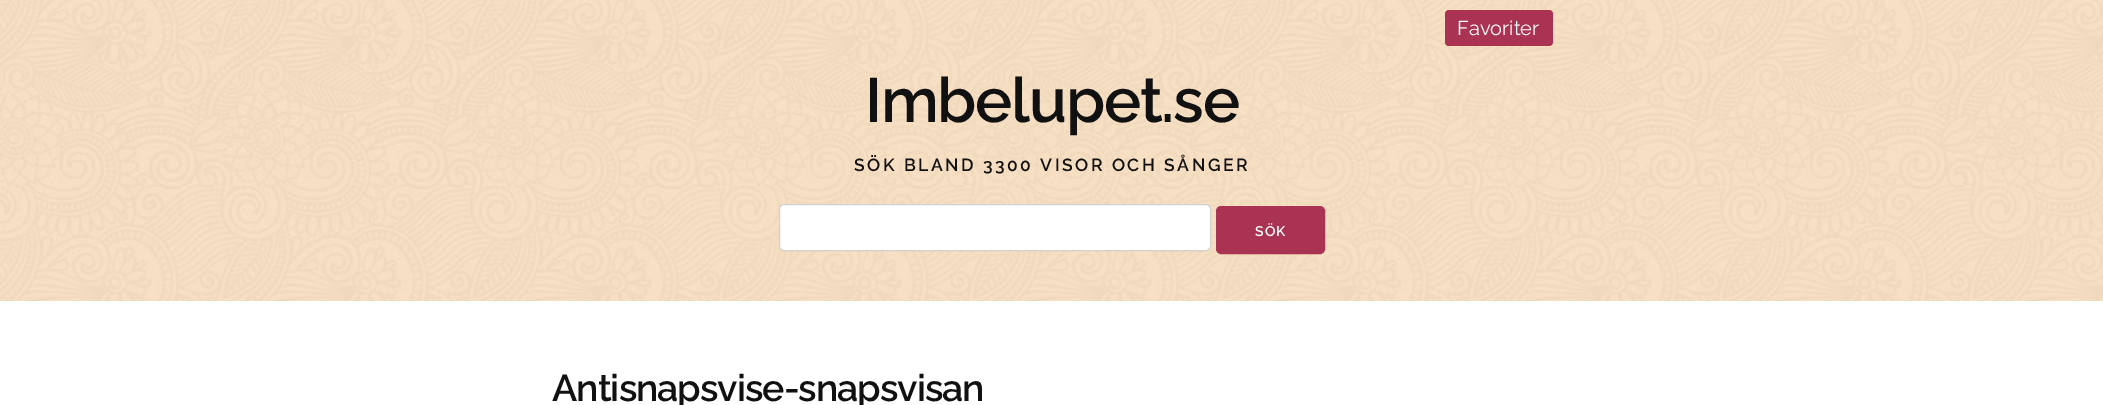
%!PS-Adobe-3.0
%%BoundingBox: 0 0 2103 405
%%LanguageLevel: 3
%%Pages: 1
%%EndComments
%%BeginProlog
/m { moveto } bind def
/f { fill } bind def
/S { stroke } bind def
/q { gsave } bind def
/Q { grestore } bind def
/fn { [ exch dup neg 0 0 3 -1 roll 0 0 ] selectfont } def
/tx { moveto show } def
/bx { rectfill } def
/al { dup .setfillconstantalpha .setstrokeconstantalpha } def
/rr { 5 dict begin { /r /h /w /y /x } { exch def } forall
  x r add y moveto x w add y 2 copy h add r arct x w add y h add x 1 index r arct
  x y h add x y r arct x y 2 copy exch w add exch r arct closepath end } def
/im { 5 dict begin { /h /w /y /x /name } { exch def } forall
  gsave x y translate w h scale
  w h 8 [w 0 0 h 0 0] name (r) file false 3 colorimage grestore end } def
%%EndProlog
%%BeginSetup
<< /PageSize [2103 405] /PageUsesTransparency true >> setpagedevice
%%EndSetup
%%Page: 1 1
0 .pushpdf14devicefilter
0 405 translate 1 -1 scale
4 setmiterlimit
1 setgray
0 0 2103 405 bx
(image0.raw) 0 0 2103 301 im
0.25 al
0.933 0.561 0.122 setrgbcolor
0 0 2103 301 bx
1 al
0.667 0.2 0.325 setrgbcolor
1445 10 108 36 4 rr f
/Raleway-Regular 20 fn
1 setgray
(Favoriter) 1457 35 tx
/Raleway-SemiBold 62.5 fn
0.067 setgray
865 122 m -1.25 0 (Imbelupet.se) ashow
/Raleway-SemiBold 17.5 fn
854 171 m 2.5 0 (SÖK BLAND 3300 VISOR OCH SÅNGER) ashow
1 setgray
779.5 204.5 431 46 4.5 rr q f Q
0.82 setgray
S
0.667 0.2 0.325 setrgbcolor
1216.5 206.5 108 47 4.5 rr q f Q
S
/Raleway-SemiBold 14 fn
1 setgray
1255 236 m 1 0 (SÖK) ashow
/Raleway-SemiBold 37.5 fn
0.067 setgray
552 401 m -1 0 (Antisnapsvise-snapsvisan) ashow
.poppdf14devicefilter showpage
%%EOF
